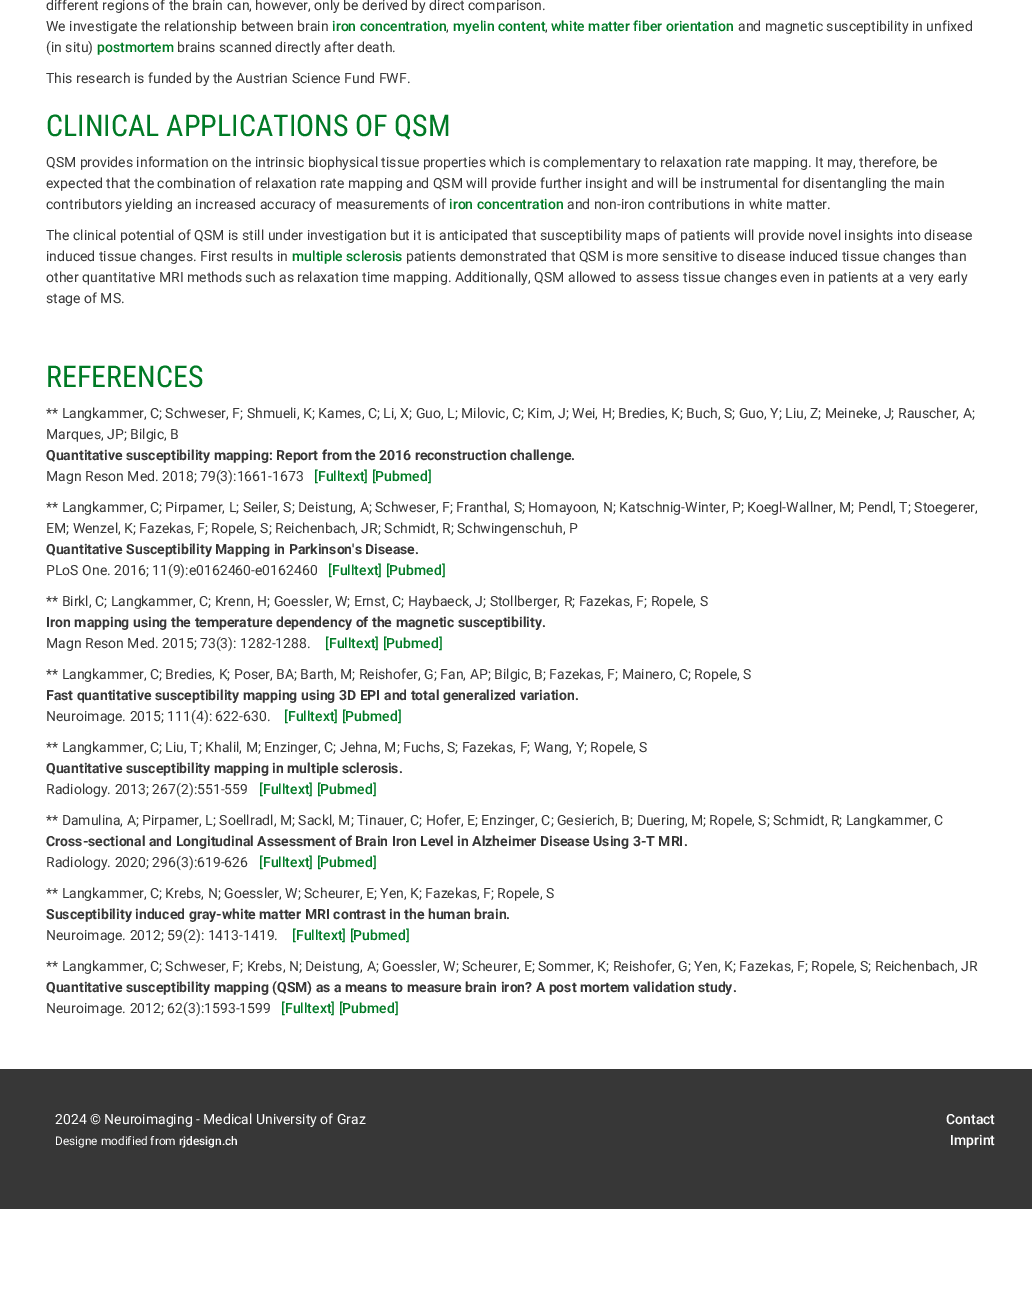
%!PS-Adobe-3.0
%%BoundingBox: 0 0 1032 1289
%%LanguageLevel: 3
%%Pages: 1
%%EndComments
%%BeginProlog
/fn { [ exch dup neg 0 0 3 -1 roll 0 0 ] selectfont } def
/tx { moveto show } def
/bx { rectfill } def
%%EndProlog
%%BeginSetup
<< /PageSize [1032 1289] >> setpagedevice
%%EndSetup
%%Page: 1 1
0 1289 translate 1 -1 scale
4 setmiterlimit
1 setgray
0 0 1032 1289 bx
/Roboto-Regular 14 fn
0.216 setgray
(different regions of the brain can, however, only be derived by direct comparison.) 46 10 tx
(We investigate the relationship between brain) 46 31 tx
/Roboto-Medium 14 fn
0 0.478 0.145 setrgbcolor
(iron concentration) 332 31 tx
/Roboto-Regular 14 fn
0.216 setgray
(,) 446 31 tx
/Roboto-Medium 14 fn
0 0.478 0.145 setrgbcolor
(myelin content) 453 31 tx
/Roboto-Regular 14 fn
0.216 setgray
(,) 545 31 tx
/Roboto-Medium 14 fn
0 0.478 0.145 setrgbcolor
(white matter fiber orientation) 551 31 tx
/Roboto-Regular 14 fn
0.216 setgray
(and magnetic susceptibility in unfixed) 738 31 tx
(\(in situ\)) 46 52 tx
/Roboto-Medium 14 fn
0 0.478 0.145 setrgbcolor
(postmortem) 97 52 tx
/Roboto-Regular 14 fn
0.216 setgray
(brains scanned directly after death.) 177 52 tx
(This research is funded by the Austrian Science Fund FWF.) 46 83 tx
/RobotoCondensed-Regular 30 fn
0 0.478 0.145 setrgbcolor
(CLINICAL APPLICATIONS OF QSM) 46 136 tx
/Roboto-Regular 14 fn
0.216 setgray
(QSM provides information on the intrinsic biophysical tissue properties which is complementary to relaxation rate mapping. It may, therefore, be) 46 167 tx
(expected that the combination of relaxation rate mapping and QSM will provide further insight and will be instrumental for disentangling the main) 46 188 tx
(contributors yielding an increased accuracy of measurements of) 46 209 tx
/Roboto-Medium 14 fn
0 0.478 0.145 setrgbcolor
(iron concentration) 449 209 tx
/Roboto-Regular 14 fn
0.216 setgray
(and non-iron contributions in white matter.) 567 209 tx
(The clinical potential of QSM is still under investigation but it is anticipated that susceptibility maps of patients will provide novel insights into disease) 46 240 tx
(induced tissue changes. First results in) 46 261 tx
/Roboto-Medium 14 fn
0 0.478 0.145 setrgbcolor
(multiple sclerosis) 292 261 tx
/Roboto-Regular 14 fn
0.216 setgray
(patients demonstrated that QSM is more sensitive to disease induced tissue changes than) 406 261 tx
(other quantitative MRI methods such as relaxation time mapping. Additionally, QSM allowed to assess tissue changes even in patients at a very early) 46 282 tx
(stage of MS.) 46 303 tx
/RobotoCondensed-Regular 30 fn
0 0.478 0.145 setrgbcolor
(REFERENCES) 46 387 tx
/Roboto-Regular 14 fn
0.216 setgray
(** Langkammer, C; Schweser, F; Shmueli, K; Kames, C; Li, X; Guo, L; Milovic, C; Kim, J; Wei, H; Bredies, K; Buch, S; Guo, Y; Liu, Z; Meineke, J; Rauscher, A;) 46 418 tx
(Marques, JP; Bilgic, B) 46 439 tx
/Roboto-Bold 14 fn
(Quantitative susceptibility mapping: Report from the 2016 reconstruction challenge.) 46 460 tx
/Roboto-Regular 14 fn
(Magn Reson Med. 2018; 79\(3\):1661-1673) 46 481 tx
/Roboto-Medium 14 fn
0 0.478 0.145 setrgbcolor
([Fulltext] [Pubmed]) 314 481 tx
/Roboto-Regular 14 fn
0.216 setgray
(** Langkammer, C; Pirpamer, L; Seiler, S; Deistung, A; Schweser, F; Franthal, S; Homayoon, N; Katschnig-Winter, P; Koegl-Wallner, M; Pendl, T; Stoegerer,) 46 512 tx
(EM; Wenzel, K; Fazekas, F; Ropele, S; Reichenbach, JR; Schmidt, R; Schwingenschuh, P) 46 533 tx
/Roboto-Bold 14 fn
(Quantitative Susceptibility Mapping in Parkinson's Disease.) 46 554 tx
/Roboto-Regular 14 fn
(PLoS One. 2016; 11\(9\):e0162460-e0162460) 46 575 tx
/Roboto-Medium 14 fn
0 0.478 0.145 setrgbcolor
([Fulltext] [Pubmed]) 328 575 tx
/Roboto-Regular 14 fn
0.216 setgray
(** Birkl, C; Langkammer, C; Krenn, H; Goessler, W; Ernst, C; Haybaeck, J; Stollberger, R; Fazekas, F; Ropele, S) 46 606 tx
/Roboto-Bold 14 fn
(Iron mapping using the temperature dependency of the magnetic susceptibility.) 46 627 tx
/Roboto-Regular 14 fn
(Magn Reson Med. 2015; 73\(3\): 1282-1288.) 46 648 tx
/Roboto-Medium 14 fn
0 0.478 0.145 setrgbcolor
([Fulltext] [Pubmed]) 325 648 tx
/Roboto-Regular 14 fn
0.216 setgray
(** Langkammer, C; Bredies, K; Poser, BA; Barth, M; Reishofer, G; Fan, AP; Bilgic, B; Fazekas, F; Mainero, C; Ropele, S) 46 679 tx
/Roboto-Bold 14 fn
(Fast quantitative susceptibility mapping using 3D EPI and total generalized variation.) 46 700 tx
/Roboto-Regular 14 fn
(Neuroimage. 2015; 111\(4\): 622-630.) 46 721 tx
/Roboto-Medium 14 fn
0 0.478 0.145 setrgbcolor
([Fulltext] [Pubmed]) 284 721 tx
/Roboto-Regular 14 fn
0.216 setgray
(** Langkammer, C; Liu, T; Khalil, M; Enzinger, C; Jehna, M; Fuchs, S; Fazekas, F; Wang, Y; Ropele, S) 46 752 tx
/Roboto-Bold 14 fn
(Quantitative susceptibility mapping in multiple sclerosis.) 46 773 tx
/Roboto-Regular 14 fn
(Radiology. 2013; 267\(2\):551-559) 46 794 tx
/Roboto-Medium 14 fn
0 0.478 0.145 setrgbcolor
([Fulltext] [Pubmed]) 259 794 tx
/Roboto-Regular 14 fn
0.216 setgray
(** Damulina, A; Pirpamer, L; Soellradl, M; Sackl, M; Tinauer, C; Hofer, E; Enzinger, C; Gesierich, B; Duering, M; Ropele, S; Schmidt, R; Langkammer, C) 46 825 tx
/Roboto-Bold 14 fn
(Cross-sectional and Longitudinal Assessment of Brain Iron Level in Alzheimer Disease Using 3-T MRI.) 46 846 tx
/Roboto-Regular 14 fn
(Radiology. 2020; 296\(3\):619-626) 46 867 tx
/Roboto-Medium 14 fn
0 0.478 0.145 setrgbcolor
([Fulltext] [Pubmed]) 259 867 tx
/Roboto-Regular 14 fn
0.216 setgray
(** Langkammer, C; Krebs, N; Goessler, W; Scheurer, E; Yen, K; Fazekas, F; Ropele, S) 46 898 tx
/Roboto-Bold 14 fn
(Susceptibility induced gray-white matter MRI contrast in the human brain.) 46 919 tx
/Roboto-Regular 14 fn
(Neuroimage. 2012; 59\(2\): 1413-1419.) 46 940 tx
/Roboto-Medium 14 fn
0 0.478 0.145 setrgbcolor
([Fulltext] [Pubmed]) 292 940 tx
/Roboto-Regular 14 fn
0.216 setgray
(** Langkammer, C; Schweser, F; Krebs, N; Deistung, A; Goessler, W; Scheurer, E; Sommer, K; Reishofer, G; Yen, K; Fazekas, F; Ropele, S; Reichenbach, JR) 46 971 tx
/Roboto-Bold 14 fn
(Quantitative susceptibility mapping \(QSM\) as a means to measure brain iron? A post mortem validation study.) 46 992 tx
/Roboto-Regular 14 fn
(Neuroimage. 2012; 62\(3\):1593-1599) 46 1013 tx
/Roboto-Medium 14 fn
0 0.478 0.145 setrgbcolor
([Fulltext] [Pubmed]) 281 1013 tx
0.216 setgray
0 1069 1032 140 bx
/Roboto-Regular 14 fn
1 setgray
(2024 © Neuroimaging - Medical University of Graz) 55 1124 tx
/Roboto-Regular 11.9 fn
(Designe modified from) 55 1145 tx
/Roboto-Medium 11.9 fn
(rjdesign.ch) 179 1145 tx
/Roboto-Medium 14 fn
(Contact) 946 1124 tx
(Imprint) 950 1145 tx
showpage
%%EOF
